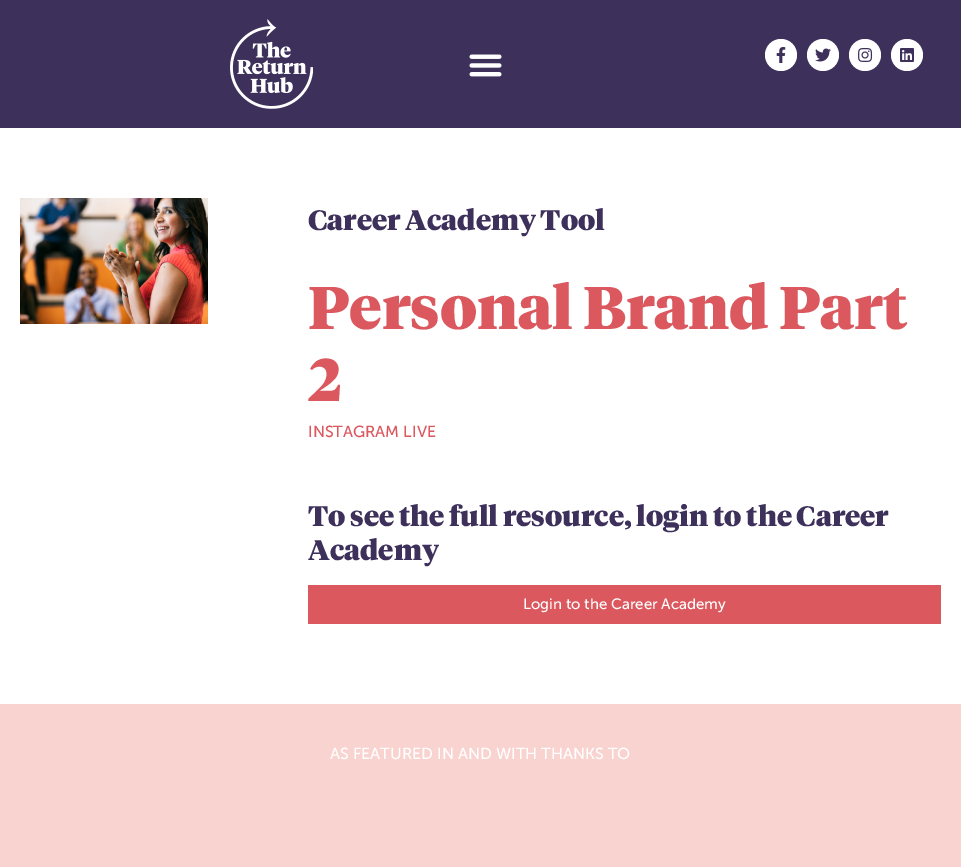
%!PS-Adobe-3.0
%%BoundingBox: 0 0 961 867
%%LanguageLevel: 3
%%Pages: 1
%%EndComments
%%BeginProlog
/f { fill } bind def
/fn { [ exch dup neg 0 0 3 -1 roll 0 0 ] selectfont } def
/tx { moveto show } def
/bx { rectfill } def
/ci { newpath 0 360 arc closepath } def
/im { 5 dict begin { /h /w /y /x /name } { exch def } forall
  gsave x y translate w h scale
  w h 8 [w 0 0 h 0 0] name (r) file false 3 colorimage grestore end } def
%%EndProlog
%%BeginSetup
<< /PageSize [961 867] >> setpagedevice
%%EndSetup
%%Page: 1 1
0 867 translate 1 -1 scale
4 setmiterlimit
1 setgray
0 0 961 867 bx
0.239 0.188 0.357 setrgbcolor
0 0 961 128 bx
(image0.raw) 230 19 83 90 im
(image1.raw) 469 54 33 23 im
1 setgray
781 55 16 ci f
(image2.raw) 776 47 10 16 im
823 55 16 ci f
(image3.raw) 815 48 16 14 im
865 55 16 ci f
(image4.raw) 858 48 15 14 im
907 55 16 ci f
(image5.raw) 900 48 14 14 im
(image6.raw) 20 198 188 126 im
/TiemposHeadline-Black 28 fn
0.239 0.188 0.357 setrgbcolor
(Career Academy Tool) 308 230 tx
/TiemposHeadline-Black 60 fn
0.859 0.345 0.373 setrgbcolor
(Personal Brand Part) 308 329 tx
(2) 308 401 tx
/MuseoSans-Regular 16 fn
(INSTAGRAM LIVE) 308 437 tx
/TiemposHeadline-Black 28 fn
0.239 0.188 0.357 setrgbcolor
(To see the full resource, login to the Career) 308 526 tx
(Academy) 308 560 tx
0.859 0.345 0.373 setrgbcolor
308 585 633 39 bx
/MuseoSans-Regular 15 fn
1 setgray
(Login to the Career Academy) 523 609 tx
0.976 0.827 0.812 setrgbcolor
0 704 961 163 bx
/MuseoSans-Regular 16 fn
1 setgray
(AS FEATURED IN AND WITH THANKS TO) 330 759 tx
showpage
%%EOF
